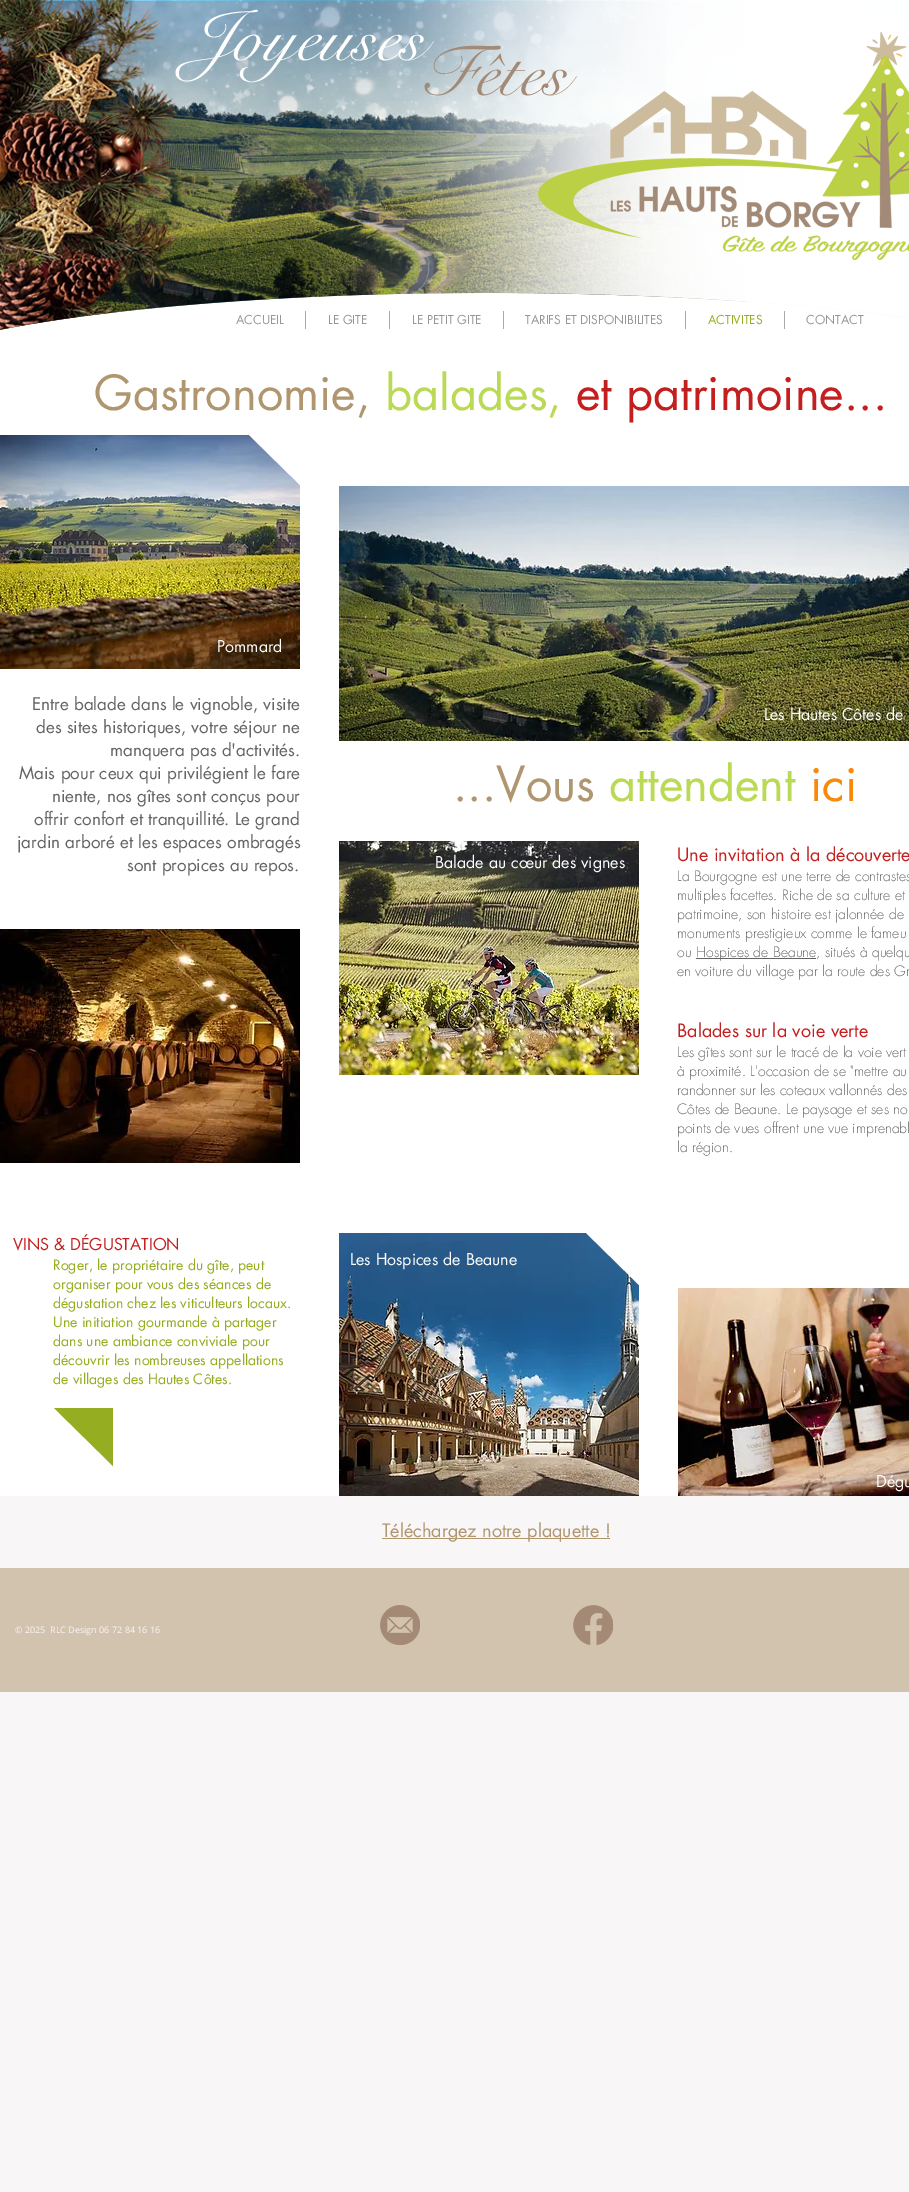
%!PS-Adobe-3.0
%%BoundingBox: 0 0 909 2192
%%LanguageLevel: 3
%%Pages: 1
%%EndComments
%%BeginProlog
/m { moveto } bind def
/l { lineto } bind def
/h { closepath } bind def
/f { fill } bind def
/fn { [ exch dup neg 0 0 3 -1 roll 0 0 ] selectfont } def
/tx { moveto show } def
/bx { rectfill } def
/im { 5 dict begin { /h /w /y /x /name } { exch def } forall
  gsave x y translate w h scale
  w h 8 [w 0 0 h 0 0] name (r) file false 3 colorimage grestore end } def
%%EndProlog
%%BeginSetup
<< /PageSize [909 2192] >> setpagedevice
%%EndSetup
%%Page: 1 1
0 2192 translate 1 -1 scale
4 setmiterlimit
0.973 0.965 0.965 setrgbcolor
0 0 909 2192 bx
1 setgray
0 0 909 1496 bx
(image0.raw) 0 0 909 330 im
/futura-Regular 12 fn
0.588 setgray
(ACCUEIL) 236 324 tx
0.663 setgray
305 311 1 18 bx
0.588 setgray
(LE GITE) 328 324 tx
0.663 setgray
389 311 1 18 bx
0.588 setgray
(LE PETIT GITE) 412 324 tx
0.663 setgray
503 311 1 18 bx
0.588 setgray
(TARIFS ET DISPONIBILITES) 525 324 tx
0.663 setgray
685 311 1 18 bx
0.584 0.678 0.125 setrgbcolor
(ACTIVITES) 708 324 tx
0.663 setgray
784 311 1 18 bx
0.588 setgray
(CONTACT) 806 324 tx
/futura-Regular 47 fn
0.69 0.588 0.435 setrgbcolor
(Gastronomie,) 94 410 tx
0.729 0.855 0.333 setrgbcolor
(balades,) 385 410 tx
0.769 0.122 0.122 setrgbcolor
(et patrimoine...) 576 410 tx
(image1.raw) 0 435 300 234 im
1 setgray
246 432 m 305 432 l 305 490 l h f
(image2.raw) 339 486 570 255 im
/futura-Regular 16 fn
(Pommard) 217 652 tx
/futura-Regular 17 fn
0.392 setgray
(Entre balade dans le vignoble, visite) 32 710 tx
(des sites historiques, votre séjour ne) 36 733 tx
(manquera pas d'activités.) 110 756 tx
(Mais pour ceux qui privilégient le fare) 19 779 tx
(niente, nos gîtes sont conçus pour) 52 802 tx
(offrir confort et tranquillité. Le grand) 34 825 tx
(jardin arboré et les espaces ombragés) 17 848 tx
(sont propices au repos.) 127 871 tx
/futura-Regular 16 fn
1 setgray
(Les Hautes Côtes de) 764 720 tx
/futura-Regular 47 fn
0.69 0.588 0.435 setrgbcolor
(...Vous) 453 801 tx
0.729 0.855 0.333 setrgbcolor
(attendent) 609 801 tx
0.976 0.537 0.035 setrgbcolor
(ici) 810 801 tx
(image3.raw) 339 841 300 234 im
/futura-Regular 18 fn
0.769 0.122 0.122 setrgbcolor
(Une invitation à la découverte) 677 861 tx
/futura-Light 14 fn
0.392 setgray
(La Bourgogne est une terre de contrastes) 677 881 tx
(multiples facettes. Riche de sa culture et) 677 900 tx
(patrimoine, son histoire est jalonnée de) 677 919 tx
(monuments prestigieux comme le fameu) 677 938 tx
(ou) 677 957 tx
696 958 120 1 bx
(Hospices de Beaune, situés à quelqu) 696 957 tx
(en voiture du village par la route des Gr) 677 976 tx
/futura-Regular 18 fn
0.769 0.122 0.122 setrgbcolor
(Balades sur la voie verte) 677 1037 tx
/futura-Light 14 fn
0.392 setgray
(Les gîtes sont sur le tracé de la voie vert) 677 1057 tx
(à proximité. L'occasion de se "mettre au) 677 1076 tx
(randonner sur les coteaux vallonnés des) 677 1095 tx
(Côtes de Beaune. Le paysage et ses no) 677 1114 tx
(points de vues offrent une vue imprenabl) 677 1133 tx
(la région.) 677 1152 tx
/futura-Regular 16 fn
1 setgray
(Balade au cœur des vignes) 435 868 tx
(image4.raw) 0 929 300 234 im
0.769 0.122 0.122 setrgbcolor
(VINS & DÉGUSTATION) 13 1250 tx
/futura-Regular 14 fn
0.584 0.678 0.125 setrgbcolor
(Roger, le propriétaire du gîte, peut) 53 1270 tx
(organiser pour vous des séances de) 53 1289 tx
(dégustation chez les viticulteurs locaux.) 53 1308 tx
(Une initiation gourmande à partager) 53 1327 tx
(dans une ambiance conviviale pour) 53 1346 tx
(découvrir les nombreuses appellations) 53 1365 tx
(de villages des Hautes Côtes.) 53 1384 tx
(image5.raw) 339 1233 300 263 im
1 setgray
580 1227 m 639 1227 l 639 1285 l h f
/futura-Regular 16 fn
(Les Hospices de Beaune) 350 1265 tx
0.584 0.678 0.125 setrgbcolor
54 1408 m 113 1408 l 113 1466 l h f
(image6.raw) 678 1288 231 208 im
1 setgray
(Dégu) 876 1487 tx
0.69 0.588 0.435 setrgbcolor
382 1538 228 1 bx
/futura-Regular 18 fn
(Téléchargez notre plaquette !) 382 1537 tx
0.824 0.765 0.682 setrgbcolor
0 1568 909 124 bx
/OpenSans-Regular 9 fn
0.973 0.965 0.965 setrgbcolor
(© 2025  RLC Design 06 72 84 16 16) 15 1633 tx
(image7.raw) 380 1605 40 40 im
(image8.raw) 573 1605 40 40 im
showpage
%%EOF
